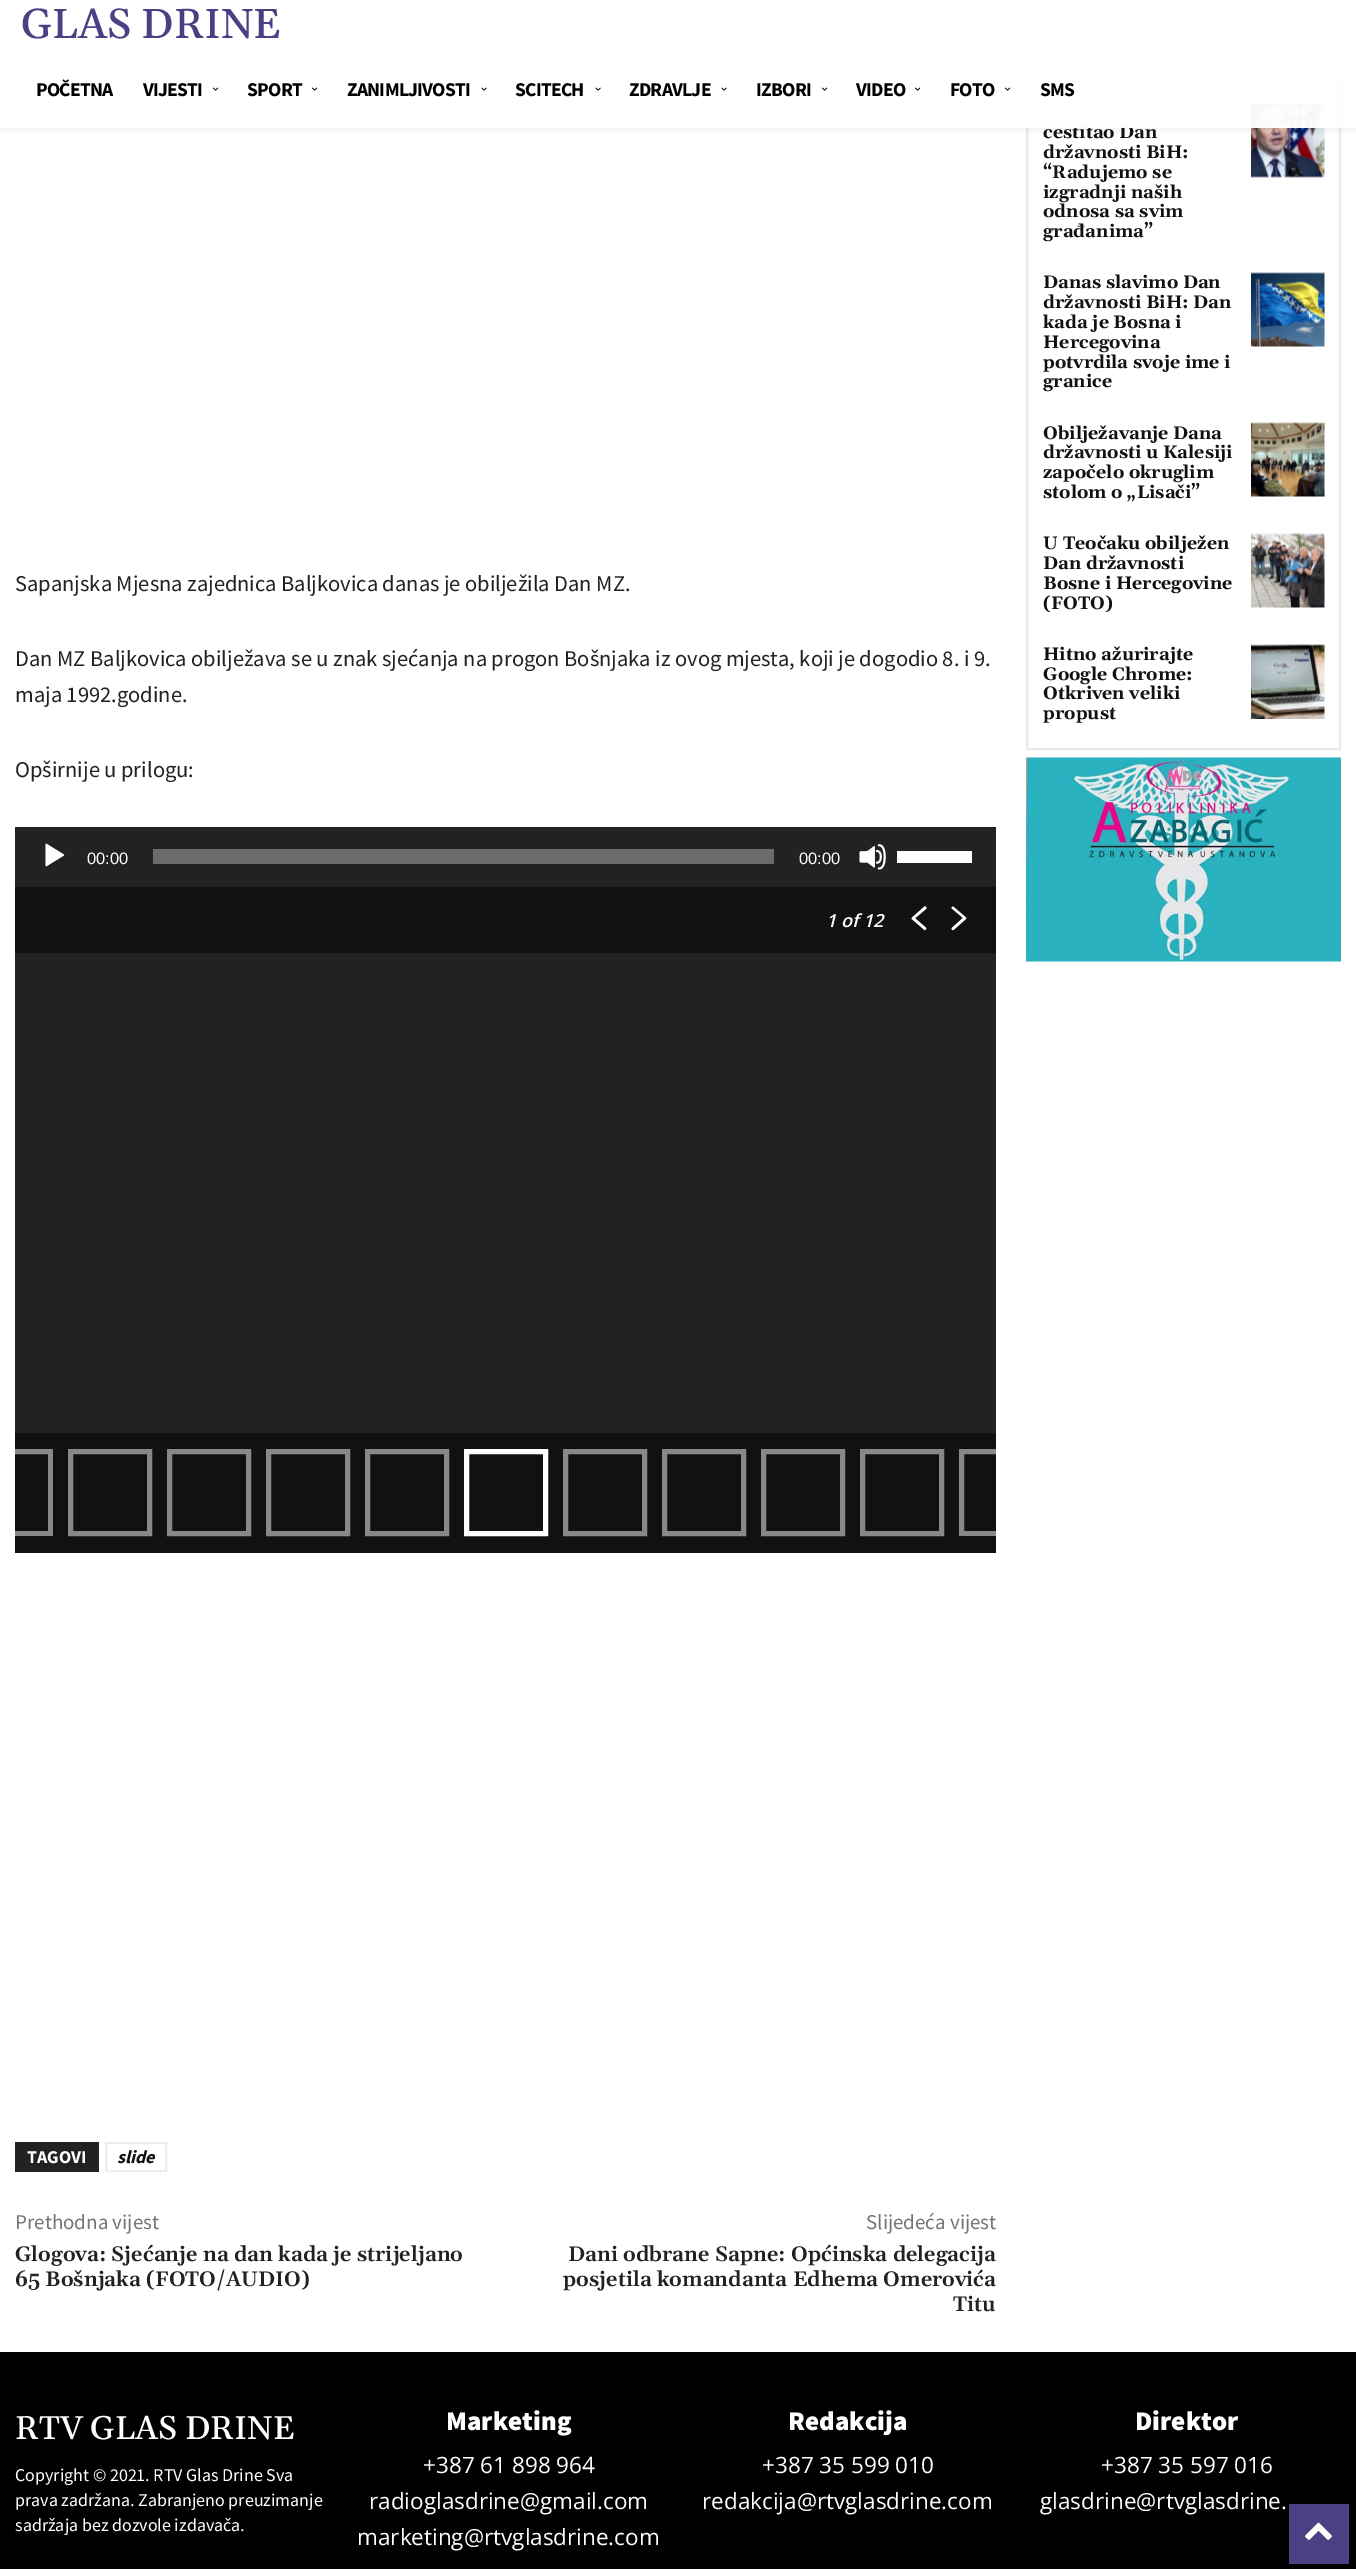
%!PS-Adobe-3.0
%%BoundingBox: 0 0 1356 2569
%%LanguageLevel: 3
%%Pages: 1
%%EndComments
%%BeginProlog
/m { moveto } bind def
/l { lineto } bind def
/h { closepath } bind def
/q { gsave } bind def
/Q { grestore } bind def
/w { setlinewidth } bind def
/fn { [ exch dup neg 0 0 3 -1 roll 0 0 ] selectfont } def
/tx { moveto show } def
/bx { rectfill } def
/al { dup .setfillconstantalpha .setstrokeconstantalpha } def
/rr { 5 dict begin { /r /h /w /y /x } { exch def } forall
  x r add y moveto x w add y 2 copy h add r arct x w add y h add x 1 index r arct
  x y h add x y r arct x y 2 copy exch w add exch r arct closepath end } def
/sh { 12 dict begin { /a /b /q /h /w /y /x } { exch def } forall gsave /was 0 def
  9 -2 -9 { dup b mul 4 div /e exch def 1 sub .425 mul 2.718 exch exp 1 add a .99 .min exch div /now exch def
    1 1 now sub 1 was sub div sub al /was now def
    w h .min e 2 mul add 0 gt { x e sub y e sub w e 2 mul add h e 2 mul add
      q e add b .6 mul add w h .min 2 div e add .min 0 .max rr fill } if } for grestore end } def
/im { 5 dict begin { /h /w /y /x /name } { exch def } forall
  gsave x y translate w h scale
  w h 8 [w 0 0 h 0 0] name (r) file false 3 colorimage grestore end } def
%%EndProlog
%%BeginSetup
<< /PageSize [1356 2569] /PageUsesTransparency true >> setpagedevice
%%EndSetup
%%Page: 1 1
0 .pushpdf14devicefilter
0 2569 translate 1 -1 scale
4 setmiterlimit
1 setgray
0 0 1356 2569 bx
0.918 setgray
2 w
1027 81 313 668 rectstroke
/Gelasio-Bold 18 fn
0.067 setgray
(čestitao Dan) 1043 138 tx
(image2.raw) 1251 104 74 74 im
0.97 al
1 setgray
1026 80 315 48 bx
q
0 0 m 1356 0 l 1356 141 l 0 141 l h 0 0 m 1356 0 l 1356 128 l 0 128 l h eoclip newpath
1 al
0 setgray
0 3 1356 128 0 3 0.06 sh
Q
/Gelasio-Medium 42 fn
1 al
0.298 0.251 0.518 setrgbcolor
(GLAS DRINE) 21 38 tx
/SourceSansPro-Bold 19.5 fn
0 setgray
36 96 m -0.75 0 (POČETNA) ashow
143 96 m -0.75 0 (VIJESTI) ashow
(image0.raw) 213 87 6 4 im
247 96 m -0.75 0 (SPORT) ashow
(image0.raw) 312 87 6 4 im
347 96 m -0.75 0 (ZANIMLJIVOSTI) ashow
(image1.raw) 481 87 6 4 im
515 96 m -0.75 0 (SCITECH) ashow
(image1.raw) 595 87 6 4 im
629 96 m -0.75 0 (ZDRAVLJE) ashow
(image1.raw) 721 87 6 4 im
756 96 m -0.75 0 (IZBORI) ashow
(image0.raw) 822 87 6 4 im
856 96 m -0.75 0 (VIDEO) ashow
(image0.raw) 915 87 6 4 im
950 96 m -0.75 0 (FOTO) ashow
(image0.raw) 1005 87 6 4 im
1040 96 m -0.75 0 (SMS) ashow
/Gelasio-Bold 18 fn
0.067 setgray
(državnosti BiH:) 1043 158 tx
(“Radujemo se) 1043 178 tx
(izgradnji naših) 1043 198 tx
(odnosa sa svim) 1043 217 tx
(građanima”) 1043 237 tx
(Danas slavimo Dan) 1043 288 tx
(državnosti BiH: Dan) 1043 308 tx
(kada je Bosna i) 1043 328 tx
(Hercegovina) 1043 348 tx
(potvrdila svoje ime i) 1043 368 tx
(granice) 1043 387 tx
(image3.raw) 1251 272 74 75 im
(Obilježavanje Dana) 1043 439 tx
(državnosti u Kalesiji) 1043 458 tx
(započelo okruglim) 1043 478 tx
(stolom o „Lisači”) 1043 498 tx
(image4.raw) 1251 422 74 75 im
(U Teočaku obilježen) 1043 549 tx
(Dan državnosti) 1043 569 tx
(Bosne i Hercegovine) 1043 589 tx
(\(FOTO\)) 1043 609 tx
(image5.raw) 1251 533 74 75 im
(Hitno ažurirajte) 1043 660 tx
(Google Chrome:) 1043 680 tx
(Otkriven veliki) 1043 699 tx
(propust) 1043 719 tx
(image6.raw) 1251 644 74 75 im
(image7.raw) 1026 757 315 205 im
/SourceSansPro-Regular 22.5 fn
0.133 setgray
(Sapanjska Mjesna zajednica Baljkovica danas je obilježila Dan MZ.) 15 591 tx
(Dan MZ Baljkovica obilježava se u znak sjećanja na progon Bošnjaka iz ovog mjesta, koji je dogodio 8. i 9.) 15 666 tx
(maja 1992.godine.) 15 702 tx
(Opširnije u prilogu:) 15 777 tx
15 827 981 60 bx
(image8.raw) 45 843 20 24 im
/LiberationSans-Regular 16.5 fn
1 setgray
(00:00) 87 864 tx
0.42 setgray
153 849 621 15 bx
1 setgray
(00:00) 799 864 tx
(image9.raw) 859 844 27 26 im
897 851 75 12 bx
0.133 setgray
15 953 981 480 bx
0.067 setgray
15 887 981 66 bx
/OpenSans-SemiBoldItalic 18 fn
1 setgray
(1 of 12) 826 927 tx
(image10.raw) 911 906 16 25 im
(image11.raw) 951 906 16 25 im
0.067 setgray
15 1433 981 120 bx
q
15 1449 38 87 rectclip
0.533 setgray
5 w
-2.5 1451.5 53 82 rectstroke
Q
0.533 setgray
5 w
70.5 1451.5 79 82 rectstroke
169.5 1451.5 79 82 rectstroke
268.5 1451.5 79 82 rectstroke
367.5 1451.5 79 82 rectstroke
1 setgray
466.5 1451.5 79 82 rectstroke
0.533 setgray
565.5 1451.5 79 82 rectstroke
664.5 1451.5 79 82 rectstroke
763.5 1451.5 79 82 rectstroke
862.5 1451.5 79 82 rectstroke
q
959 1449 37 87 rectclip
961.5 1451.5 79 82 rectstroke
Q
0.133 setgray
15 2142 84 30 bx
/SourceSansPro-Bold 18 fn
1 setgray
(TAGOVI) 27 2163 tx
0.929 setgray
2 w
106 2143 60 28 rectstroke
/SourceSansPro-BoldItalic 18 fn
0.067 setgray
(slide) 117 2163 tx
/SourceSansPro-Regular 21 fn
0.455 setgray
(Prethodna vijest) 15 2229 tx
/Gelasio-SemiBold 21 fn
0.133 setgray
(Glogova: Sjećanje na dan kada je strijeljano) 15 2261 tx
(65 Bošnjaka \(FOTO/AUDIO\)) 15 2286 tx
/SourceSansPro-Regular 21 fn
0.455 setgray
(Slijedeća vijest) 866 2229 tx
/Gelasio-SemiBold 21 fn
0.133 setgray
(Dani odbrane Sapne: Općinska delegacija) 568 2261 tx
(posjetila komandanta Edhema Omerovića) 563 2286 tx
(Titu) 953 2311 tx
0 setgray
0 2352 1356 217 bx
/Gelasio-Medium 33 fn
1 setgray
(RTV GLAS DRINE) 15 2439 tx
/SourceSansPro-Regular 18 fn
(Copyright © 2021. RTV Glas Drine Sva) 15 2481 tx
(prava zadržana. Zabranjeno preuzimanje) 15 2506 tx
(sadržaja bez dozvole izdavača.) 15 2531 tx
/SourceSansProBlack-Black 27 fn
(Marketing) 446 2430 tx
/OpenSans-Regular 22.5 fn
(+387 61 898 964) 423 2473 tx
(radioglasdrine@gmail.com) 369 2509 tx
(marketing@rtvglasdrine.com) 357 2545 tx
/SourceSansProBlack-Black 27 fn
(Redakcija) 788 2430 tx
/OpenSans-Regular 22.5 fn
(+387 35 599 010) 762 2473 tx
(redakcija@rtvglasdrine.com) 702 2509 tx
/SourceSansProBlack-Black 27 fn
(Direktor) 1135 2430 tx
/OpenSans-Regular 22.5 fn
(+387 35 597 016) 1101 2473 tx
(glasdrine@rtvglasdrine.) 1040 2509 tx
0.298 0.251 0.518 setrgbcolor
1289 2504 60 60 bx
(image12.raw) 1305 2522 27 18 im
.poppdf14devicefilter showpage
%%EOF
